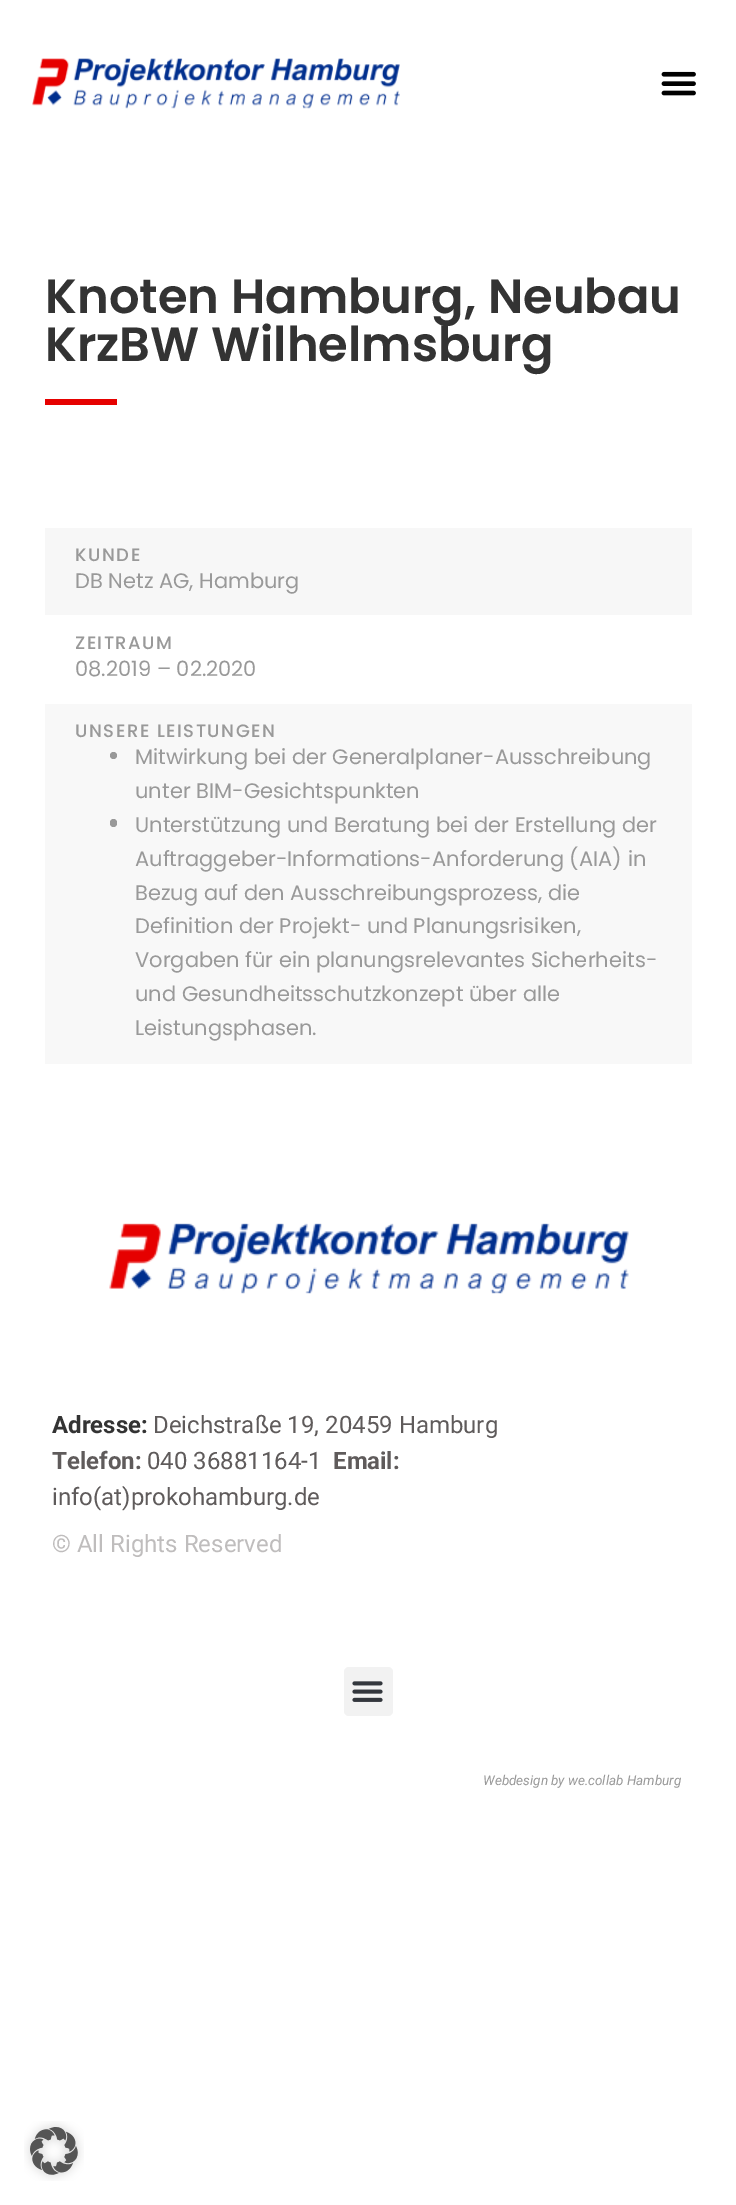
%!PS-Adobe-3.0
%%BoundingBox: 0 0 736 2205
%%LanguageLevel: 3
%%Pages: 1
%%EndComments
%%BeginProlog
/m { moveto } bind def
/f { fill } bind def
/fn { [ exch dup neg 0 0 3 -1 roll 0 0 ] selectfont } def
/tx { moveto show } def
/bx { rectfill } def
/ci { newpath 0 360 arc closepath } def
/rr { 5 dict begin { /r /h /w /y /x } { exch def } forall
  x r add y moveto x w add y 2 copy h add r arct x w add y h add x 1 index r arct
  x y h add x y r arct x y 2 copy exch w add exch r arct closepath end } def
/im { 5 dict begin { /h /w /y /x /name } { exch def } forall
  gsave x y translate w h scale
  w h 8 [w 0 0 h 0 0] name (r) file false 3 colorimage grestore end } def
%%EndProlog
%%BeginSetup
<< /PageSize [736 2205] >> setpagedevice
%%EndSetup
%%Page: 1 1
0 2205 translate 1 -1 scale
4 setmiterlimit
1 setgray
0 0 736 2205 bx
(image0.raw) 32 58 368 51 im
(image1.raw) 661 71 35 25 im
/Poppins-SemiBold 48 fn
0.2 setgray
(Knoten Hamburg, Neubau) 45 313 tx
(KrzBW Wilhelmsburg) 45 361 tx
0.902 0.004 0 setrgbcolor
45 399 72 6 bx
0.969 setgray
45 528 647 87 bx
/Poppins-Medium 18 fn
0.6 setgray
75 561 m 1.5 0 (KUNDE) ashow
/Poppins-Regular 21 fn
(DB Netz AG, Hamburg) 75 588 tx
/Poppins-Medium 18 fn
75 649 m 1.5 0 (ZEITRAUM) ashow
/Poppins-Regular 21 fn
(08.2019 – 02.2020) 75 676 tx
0.973 setgray
45 704 647 360 bx
/Poppins-Medium 18 fn
0.6 setgray
75 737 m 1.5 0 (UNSERE LEISTUNGEN) ashow
113.5 755.5 3.5 ci f
/Poppins-Regular 21 fn
(Mitwirkung bei der Generalplaner-Ausschreibung) 135 764 tx
(unter BIM-Gesichtspunkten) 135 798 tx
110 819 7 8 3.5 rr f
(Unterstützung und Beratung bei der Erstellung der) 135 832 tx
(Auftraggeber-Informations-Anforderung \(AIA\) in) 135 866 tx
(Bezug auf den Ausschreibungsprozess, die) 135 900 tx
(Definition der Projekt- und Planungsrisiken,) 135 933 tx
(Vorgaben für ein planungsrelevantes Sicherheits-) 135 967 tx
(und Gesundheitsschutzkonzept über alle) 135 1001 tx
(Leistungsphasen.) 135 1035 tx
(image2.raw) 109 1223 520 71 im
/Roboto-Bold 24 fn
0.2 setgray
(Adresse:) 52 1433 tx
/Roboto-Regular 24 fn
0.373 0.357 0.357 setrgbcolor
(Deichstraße 19, 20459 Hamburg) 153 1433 tx
/Roboto-Bold 24 fn
(Telefon:) 52 1469 tx
/Roboto-Regular 24 fn
(040 36881164-1) 147 1469 tx
/Roboto-Bold 24 fn
(Email:) 333 1469 tx
/Roboto-Regular 24 fn
(info\(at\)prokohamburg.de) 52 1505 tx
0.749 0.741 0.741 setrgbcolor
(© All Rights Reserved) 52 1552 tx
0.949 setgray
344 1667 49 49 5 rr f
(image3.raw) 352 1681 31 21 im
/Roboto-Italic 13.5 fn
0.6 setgray
(Webdesign by we.collab Hamburg) 483 1785 tx
(image4.raw) 24 2121 60 60 im
showpage
%%EOF
